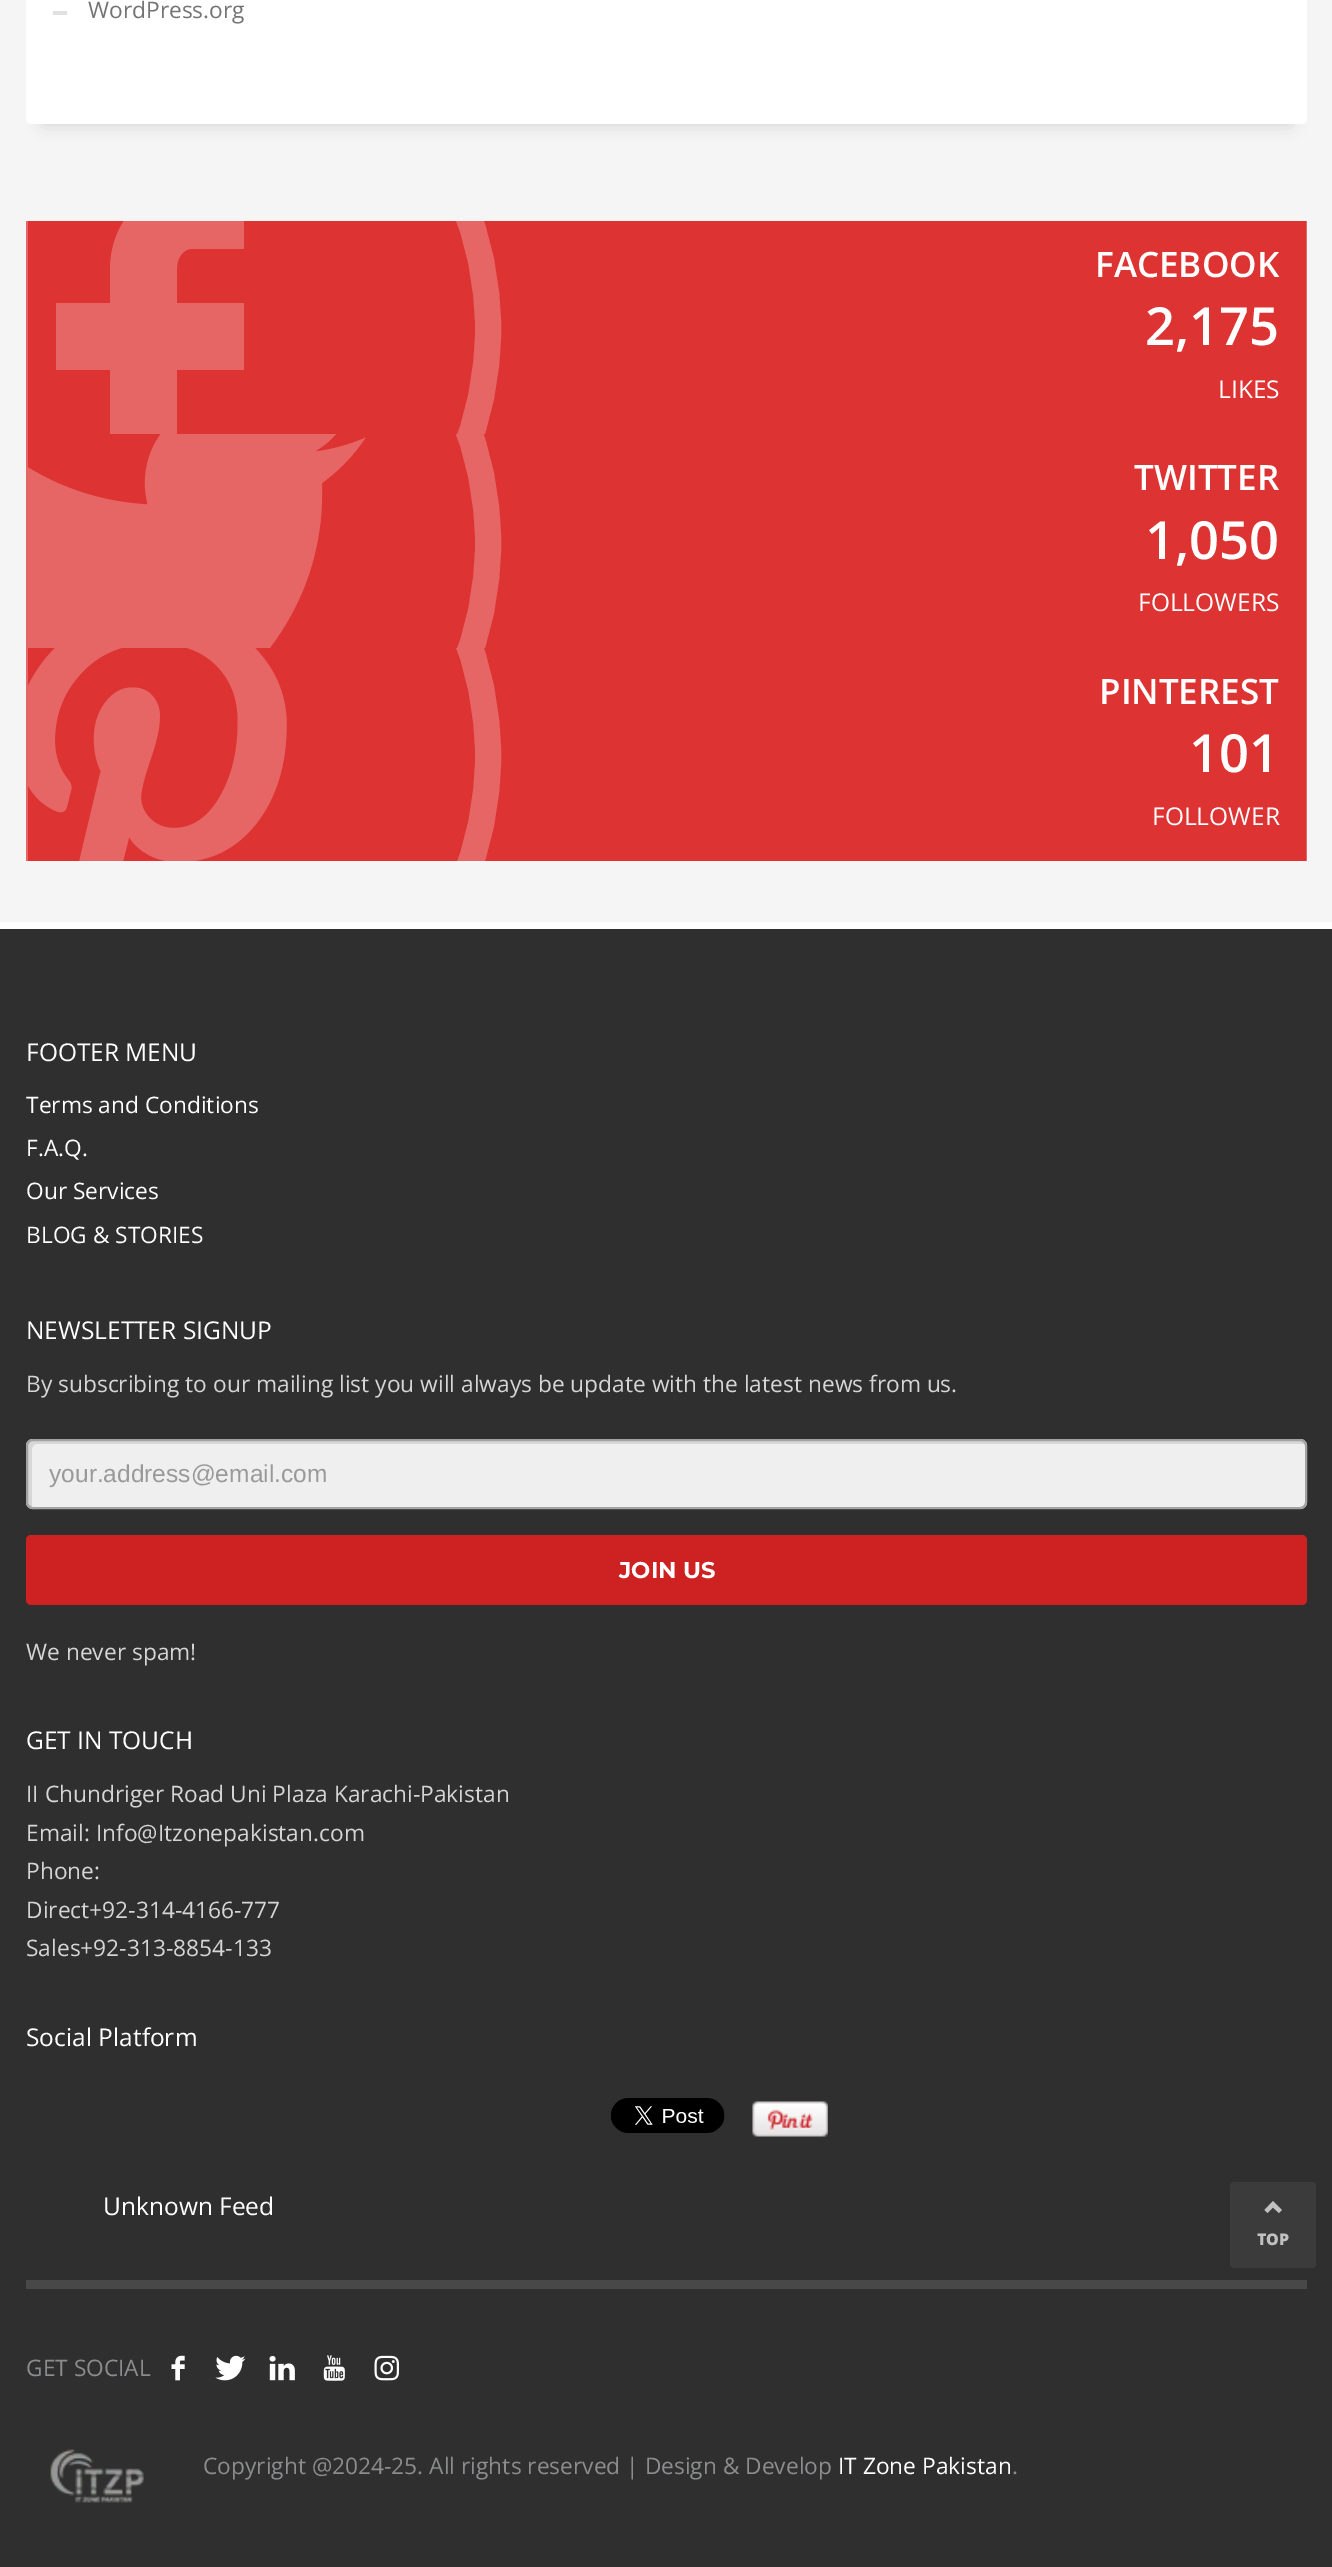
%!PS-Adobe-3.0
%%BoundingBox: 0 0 1332 2567
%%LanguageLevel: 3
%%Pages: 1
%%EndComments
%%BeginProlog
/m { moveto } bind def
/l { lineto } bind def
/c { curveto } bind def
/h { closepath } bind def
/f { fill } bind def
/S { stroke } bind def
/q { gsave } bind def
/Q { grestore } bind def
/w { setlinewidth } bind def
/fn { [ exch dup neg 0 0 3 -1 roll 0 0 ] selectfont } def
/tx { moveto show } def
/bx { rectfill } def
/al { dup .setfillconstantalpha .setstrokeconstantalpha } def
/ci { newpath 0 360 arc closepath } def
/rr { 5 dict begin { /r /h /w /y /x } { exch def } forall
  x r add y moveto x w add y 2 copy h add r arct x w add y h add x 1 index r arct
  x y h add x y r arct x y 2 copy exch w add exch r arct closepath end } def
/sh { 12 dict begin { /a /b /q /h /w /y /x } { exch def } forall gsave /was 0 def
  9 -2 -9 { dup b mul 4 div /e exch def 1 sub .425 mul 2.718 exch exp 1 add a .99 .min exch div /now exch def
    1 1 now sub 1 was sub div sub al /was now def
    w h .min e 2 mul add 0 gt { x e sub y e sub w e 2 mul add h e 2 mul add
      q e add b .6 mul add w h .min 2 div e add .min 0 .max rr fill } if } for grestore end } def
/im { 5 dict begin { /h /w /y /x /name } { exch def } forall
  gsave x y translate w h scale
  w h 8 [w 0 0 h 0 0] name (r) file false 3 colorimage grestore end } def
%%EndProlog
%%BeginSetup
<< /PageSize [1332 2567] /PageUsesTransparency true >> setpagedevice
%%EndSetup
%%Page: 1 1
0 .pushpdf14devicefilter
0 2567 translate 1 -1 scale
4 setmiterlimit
0.961 setgray
0 0 1332 2567 bx
0.973 setgray
1307 221 1 640 bx
0 setgray
44 -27 1246 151 0 9 0.15 sh
1 setgray
26 -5 1281 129 5 rr f
0.882 setgray
53 11 14 4 bx
/OpenSans-Regular 22.75 fn
0.455 setgray
(WordPress.org) 88 18 tx
0.867 0.2 0.2 setrgbcolor
28 221 1278 640 bx
0.902 0.4 0.4 setrgbcolor
1306 221 1 640 bx
26 221 2 640 bx
q
28 221 1278 213 rectclip
26 w
151 329 337 ci S
56 370 m 56 303 l 110 303 l 110 270 l 110 246 118 225 134 208 c 150 191 169 182 191 182 c 244 182 l 244 249 l 191 249 l 187 249 184 251 181 255 c 178 259 177 263 177 269 c 177 303 l 244 303 l 244 370 l 177 370 l 177 532 l 110 532 l 110 370 l h f
Q
/OpenSans-SemiBold 35 fn
1 setgray
(FACEBOOK) 1095 277 tx
/OpenSans-SemiBold 52.5 fn
(2,175) 1145 345 tx
/OpenSans-Regular 24.5 fn
(LIKES) 1218 398 tx
q
28 434 1278 214 rectclip
0.902 0.4 0.4 setrgbcolor
26 w
151 543 337 ci S
Q
(image0.raw) 28 434 338 214 im
/OpenSans-SemiBold 35 fn
(TWITTER) 1134 490 tx
/OpenSans-SemiBold 52.5 fn
(1,050) 1145 559 tx
/OpenSans-Regular 24.5 fn
(FOLLOWERS) 1138 611 tx
0.184 setgray
0 929 1332 1638 bx
1 setgray
0 922 1332 7 bx
(FOOTER MENU) 26 1061 tx
/OpenSans-Regular 22.75 fn
(Terms and Conditions) 26 1113 tx
q
28 648 1278 213 rectclip
0.902 0.4 0.4 setrgbcolor
26 w
151 756 337 ci S
Q
(image1.raw) 28 648 259 213 im
/OpenSans-SemiBold 35 fn
(PINTEREST) 1099 704 tx
/OpenSans-SemiBold 52.5 fn
(101) 1189 772 tx
/OpenSans-Regular 24.5 fn
(FOLLOWER) 1152 825 tx
/OpenSans-Regular 22.75 fn
(F.A.Q.) 26 1156 tx
(Our Services) 26 1199 tx
(BLOG & STORIES) 26 1243 tx
/OpenSans-Regular 24.5 fn
(NEWSLETTER SIGNUP) 26 1339 tx
/OpenSans-Regular 22.75 fn
0.835 setgray
(By subscribing to our mailing list you will always be update with the latest news from us.) 26 1392 tx
0.937 setgray
26 1439 1281 70 7 rr f
0.1 al
0 setgray
37 1444 m 1306 1444 l 1306 1442 1304 1440 1301 1440 c 33 1440 l 30 1440 28 1442 28 1445 c 28 1502 l 28 1505 30 1507 32 1507 c 32 1458 l 32 1454 30 1444 37 1444 c h f
1 al
0.639 setgray
2 w
27 1440 1279 68 6 rr S
/LiberationSans-Regular 24.5 fn
0.6 setgray
(your.address@email.com) 49 1482 tx
0.804 0.129 0.133 setrgbcolor
26 1535 1281 70 5 rr f
/Montserrat-Bold 22.75 fn
1 setgray
(JOIN US) 619 1578 tx
/OpenSans-Regular 22.75 fn
0.835 setgray
(We never spam!) 26 1660 tx
/OpenSans-Regular 24.5 fn
1 setgray
(GET IN TOUCH) 26 1749 tx
/OpenSans-Regular 22.75 fn
0.835 setgray
(II Chundriger Road Uni Plaza Karachi-Pakistan) 26 1802 tx
(Email: Info@Itzonepakistan.com) 26 1841 tx
(Phone:) 26 1879 tx
(Direct+92-314-4166-777) 26 1918 tx
(Sales+92-313-8854-133) 26 1956 tx
/OpenSans-Regular 24.5 fn
1 setgray
(Social Platform) 26 2046 tx
(image2.raw) 611 2098 114 35 im
(image3.raw) 752 2101 76 36 im
(Unknown Feed) 103 2215 tx
0.282 setgray
26 2280 1281 9 bx
/OpenSans-Regular 22.75 fn
0.545 0.549 0.553 setrgbcolor
(GET SOCIAL) 26 2376 tx
(image4.raw) 171 2355 14 26 im
(image5.raw) 215 2355 31 26 im
(image6.raw) 269 2356 26 25 im
(image7.raw) 323 2355 22 26 im
(image8.raw) 374 2355 25 26 im
(image9.raw) 50 2449 94 54 im
(Copyright @2024-25. All rights reserved | Design & Develop) 203 2474 tx
1 setgray
(IT Zone Pakistan) 838 2474 tx
0.545 0.549 0.553 setrgbcolor
(.) 1012 2474 tx
0.231 setgray
1230 2182 86 86 4 rr f
0.757 setgray
1273 2201 m 1282 2210 l 1279 2213 l 1273 2207.5 l 1267.5 2213 l 1264.5 2210 l h f
/OpenSans-ExtraBold 16 fn
(TOP) 1257 2245 tx
.poppdf14devicefilter showpage
%%EOF
